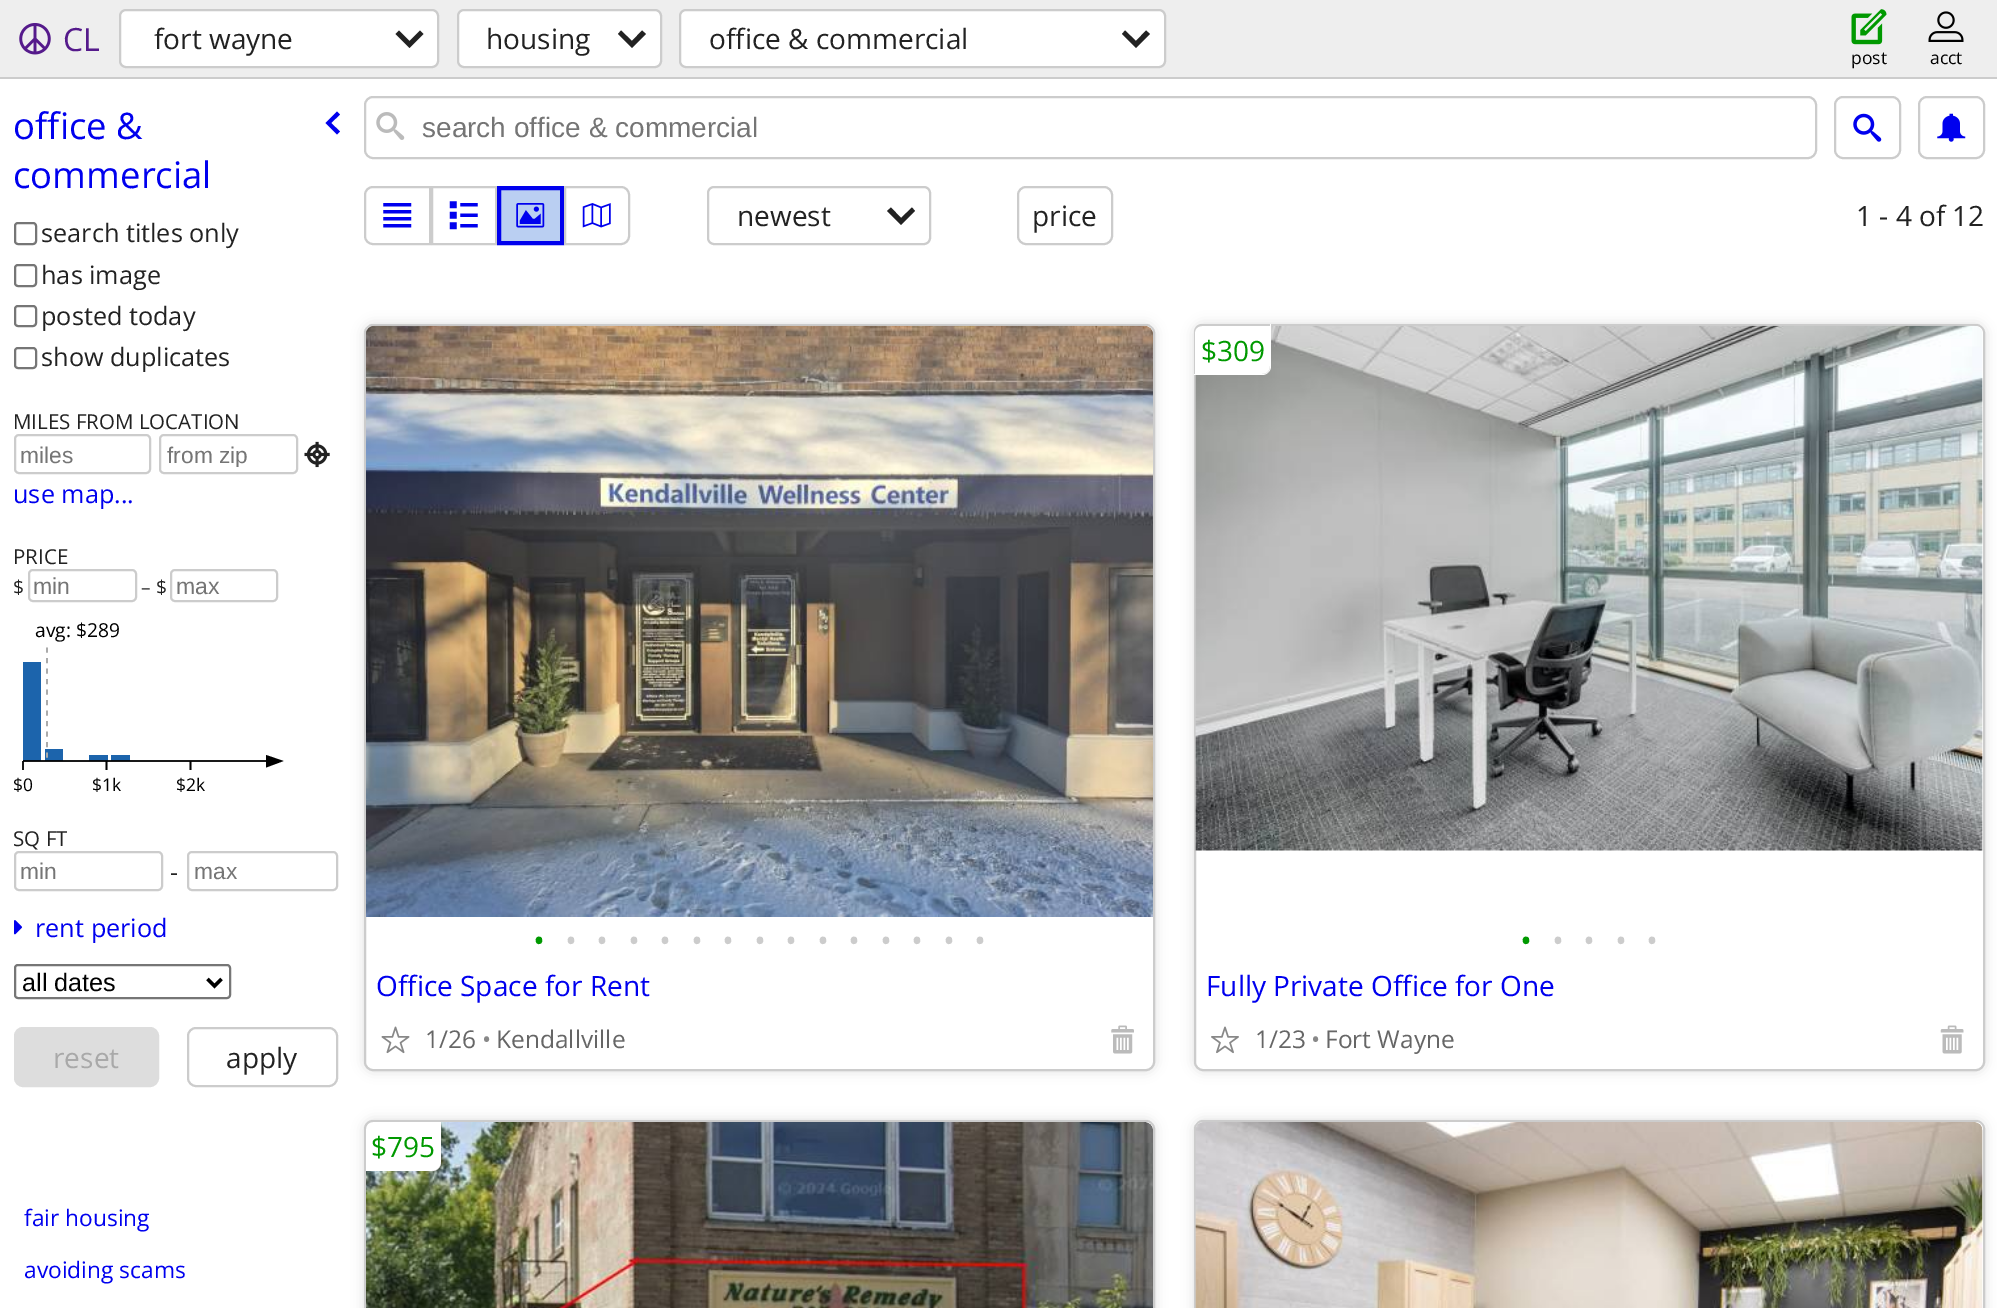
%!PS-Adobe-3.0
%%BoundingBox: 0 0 1997 1308
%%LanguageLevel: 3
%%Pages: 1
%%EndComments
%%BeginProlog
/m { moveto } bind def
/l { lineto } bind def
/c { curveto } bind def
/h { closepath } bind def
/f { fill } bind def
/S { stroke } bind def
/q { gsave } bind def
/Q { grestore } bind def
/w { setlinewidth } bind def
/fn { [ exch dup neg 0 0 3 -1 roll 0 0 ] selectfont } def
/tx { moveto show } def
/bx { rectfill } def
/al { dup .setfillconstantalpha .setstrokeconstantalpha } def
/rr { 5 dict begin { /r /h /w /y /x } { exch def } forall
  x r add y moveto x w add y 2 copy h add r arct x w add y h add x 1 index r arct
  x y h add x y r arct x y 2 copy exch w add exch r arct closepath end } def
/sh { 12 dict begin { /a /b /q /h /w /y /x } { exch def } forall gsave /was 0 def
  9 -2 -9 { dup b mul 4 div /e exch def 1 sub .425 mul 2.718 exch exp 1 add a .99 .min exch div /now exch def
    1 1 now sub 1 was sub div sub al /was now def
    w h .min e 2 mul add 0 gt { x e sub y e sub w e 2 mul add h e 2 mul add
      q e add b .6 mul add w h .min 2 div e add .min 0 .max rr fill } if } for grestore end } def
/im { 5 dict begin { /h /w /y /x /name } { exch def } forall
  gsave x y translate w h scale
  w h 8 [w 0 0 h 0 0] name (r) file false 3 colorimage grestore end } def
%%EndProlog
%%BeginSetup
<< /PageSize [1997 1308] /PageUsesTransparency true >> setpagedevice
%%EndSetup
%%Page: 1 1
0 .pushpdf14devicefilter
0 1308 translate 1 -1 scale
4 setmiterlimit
1 setgray
0 0 1997 1308 bx
0.933 setgray
0 0 1997 77 bx
0.8 setgray
0 77 1997 2 bx
(image0.raw) 19 23 32 32 im
/OpenSans-Regular 32 fn
0.333 0.102 0.545 setrgbcolor
(CL) 63 51 tx
1 setgray
120 10 318 57 6 rr q f Q
0.8 setgray
2 w
S
/OpenSans-Regular 28 fn
0.133 setgray
(fort wayne) 154 49 tx
423.5 34 m 420 30.5 l 409.5 41 l 399 30.5 l 395.5 34 l 409.5 48 l h f
1 setgray
458 10 203 57 6 rr q f Q
0.8 setgray
S
0.133 setgray
(housing) 486 49 tx
646 34 m 642 30.5 l 632 41 l 621 30.5 l 618 34 l 632 48 l h f
1 setgray
680 10 485 57 6 rr q f Q
0.8 setgray
S
0.133 setgray
(office & commercial) 709 49 tx
1150 34 m 1146 30.5 l 1136 41 l 1125 30.5 l 1122 34 l 1136 48 l h f
(image1.raw) 1851 9 36 36 im
/OpenSans-Regular 17.5 fn
0 setgray
(post) 1851 64 tx
(image2.raw) 1928 11 36 31 im
(acct) 1930 64 tx
/OpenSans-Regular 36.5 fn
0 0 0.933 setrgbcolor
(office &) 13 139 tx
(commercial) 13 188 tx
337 134.5 m 340 131.5 l 331 123 l 340 114.5 l 337 111.5 l 325.5 123 l h f
0.463 setgray
15 223 21 21 3 rr S
/OpenSans-Regular 25.25 fn
0.133 setgray
(search titles only) 41 242 tx
0.463 setgray
15 265 21 21 3 rr S
0.133 setgray
(has image) 41 284 tx
0.463 setgray
15 306 21 20 3 rr S
0.133 setgray
(posted today) 41 325 tx
0.463 setgray
15 348 21 20 3 rr S
0.133 setgray
(show duplicates) 41 366 tx
/OpenSans-Regular 20.5 fn
(MILES FROM LOCATION) 13 429 tx
0.8 setgray
15 435 135 38 4 rr S
/LiberationSans-Regular 22.75 fn
0.459 setgray
(miles) 20 463 tx
0.8 setgray
160 435 137 38 4 rr S
q
166 441 125 26 rectclip
0.459 setgray
(from zip) 167 463 tx
Q
(image3.raw) 304 441 26 27 im
/OpenSans-Regular 25.25 fn
0 0 0.933 setrgbcolor
(use map...) 13 503 tx
/OpenSans-Regular 20.5 fn
0.133 setgray
(PRICE) 13 564 tx
/OpenSans-Regular 19.25 fn
($) 13 594 tx
0.8 setgray
29 570 107 31 4 rr S
/LiberationSans-Regular 23 fn
0.459 setgray
(min) 33 594 tx
/OpenSans-Regular 19.25 fn
0.133 setgray
(– $) 141 594 tx
0.8 setgray
171 570 106 31 4 rr S
/LiberationSans-Regular 23 fn
0.459 setgray
(max) 176 594 tx
0.11 0.392 0.675 setrgbcolor
45 749 18 12 bx
0.667 setgray
1.8 w
[5.25 5.25] 0 setdash
47 647.5 m 47 761 l S
/OpenSans-Regular 19.25 fn
0 setgray
(avg: $289) 35 637 tx
0.11 0.392 0.675 setrgbcolor
23 662 18 99 bx
89 755 19 6 bx
111 755 19 6 bx
0.102 setgray
22 761 2 9 bx
0 setgray
[] 0 setdash
106.5 761 m 106.5 770 l S
190.5 761 m 190.5 770 l S
0.9 al
23 760 243 2 bx
1 al
266 755 m 283.5 761 l 266 767.5 l h f
/OpenSans-Regular 17.5 fn
($0) 13 791 tx
($1k) 92 791 tx
($2k) 176 791 tx
/OpenSans-Regular 20.5 fn
0.133 setgray
(SQ FT) 13 846 tx
0.8 setgray
2 w
15 852 147 38 4 rr S
/LiberationSans-Regular 22.75 fn
0.459 setgray
(min) 20 879 tx
/OpenSans-Regular 25.25 fn
0.133 setgray
(-) 170 881 tx
0.8 setgray
188 852 149 38 4 rr S
/LiberationSans-Regular 22.75 fn
0.459 setgray
(max) 194 879 tx
(image4.raw) 14 920 9 15 im
/OpenSans-Regular 25.25 fn
0 0 0.933 setrgbcolor
(rent period) 35 937 tx
0.463 setgray
15 965 215 33 3 rr S
0 setgray
3.5 w
207.5 979 m 214.5 986 l 221.5 979 l S
/LiberationSans-Regular 25.25 fn
(all dates) 22 991 tx
0.867 setgray
15 1028 143 58 8 rr q f Q
2 w
S
/OpenSans-Regular 28 fn
0.663 setgray
(reset) 53 1068 tx
0.8 setgray
188 1028 149 58 8 rr S
0.133 setgray
(apply) 226 1068 tx
/OpenSans-Regular 22.75 fn
0 0 0.933 setrgbcolor
(fair housing) 24 1226 tx
(avoiding scams) 24 1278 tx
0.8 setgray
365 97 1451 61 8 rr S
(image5.raw) 376 112 29 28 im
/LiberationSans-Regular 28 fn
0.459 setgray
(search office & commercial) 422 137 tx
0.8 setgray
1835 97 65 61 8 rr S
(image6.raw) 1853 113 29 29 im
1919 97 65 61 8 rr S
(image7.raw) 1937 113 29 29 im
373 187 m 430 187 l 430 244 l 373 244 l 368.5 244 365 240.5 365 236 c 365 195 l 365 190.5 368.5 187 373 187 c h S
(image8.raw) 383 203 29 25 im
432 187 64 57 rectstroke
(image9.raw) 449 201 29 29 im
0.729 0.812 0.949 setrgbcolor
499 188 m 562 188 l 562 243 l 499 243 l h q f Q
0 0 0.933 setrgbcolor
4 w
S
(image10.raw) 516 203 29 25 im
0.8 setgray
2 w
565 187 m 621 187 l 625.5 187 629 190.5 629 195 c 629 236 l 629 240.5 625.5 244 621 244 c 565 244 l h S
(image11.raw) 582 203 29 25 im
708 187 222 57 6 rr S
/OpenSans-Regular 28 fn
0.133 setgray
(newest) 737 226 tx
915 211 m 912 207.5 l 901 218 l 891 207.5 l 887 211 l 901 225 l h f
0.8 setgray
1018 187 94 57 8 rr S
0.133 setgray
(price) 1032 226 tx
(1 - 4 of 12) 1856 226 tx
q
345 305 m 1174 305 l 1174 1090 l 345 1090 l h 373 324 m 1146 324 l 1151 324 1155 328 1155 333 c 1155 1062 l 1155 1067 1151 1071 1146 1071 c 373 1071 l 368 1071 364 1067 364 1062 c 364 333 l 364 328 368 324 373 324 c h eoclip newpath
0.867 setgray
364 324 791 747 9 6 1 sh
Q
0.8 setgray
365 325 789 745 8 rr S
(image12.raw) 366 325 787 592 im
/OpenSans-Regular 32 fn
0 0.6 0 setrgbcolor
(•) 533 952 tx
0.8 setgray
(•) 565 952 tx
(•) 596 952 tx
(•) 628 952 tx
(•) 659 952 tx
(•) 691 952 tx
(•) 722 952 tx
(•) 754 952 tx
(•) 785 952 tx
(•) 817 952 tx
(•) 848 952 tx
(•) 880 952 tx
(•) 911 952 tx
(•) 943 952 tx
(•) 974 952 tx
/OpenSans-Regular 28 fn
0 0 0.933 setrgbcolor
(Office Space for Rent) 376 996 tx
(image13.raw) 381 1026 29 28 im
/OpenSans-Regular 24.5 fn
0.4 setgray
(1/26) 425 1048 tx
0.533 setgray
(•) 482 1048 tx
0.4 setgray
(Kendallville) 496 1048 tx
(image14.raw) 1111 1025 23 29 im
q
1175 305 m 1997 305 l 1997 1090 l 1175 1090 l h 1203 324 m 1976 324 l 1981 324 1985 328 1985 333 c 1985 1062 l 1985 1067 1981 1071 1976 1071 c 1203 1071 l 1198 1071 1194 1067 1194 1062 c 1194 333 l 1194 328 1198 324 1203 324 c h eoclip newpath
0.867 setgray
1194 324 791 747 9 6 1 sh
Q
0.8 setgray
1195 325 789 745 8 rr S
(image15.raw) 1195 325 788 526 im
1 setgray
1203 324 m 1271 324 l 1271 366 l 1271 371 1267 375 1262 375 c 1194 375 l 1194 333 l 1194 328 1198 324 1203 324 c h f
0.8 setgray
1202 324 m 1270 324 l 1270 366 l 1270 371 1267 374 1262 374 c 1194 374 l 1194 332 l 1194 328 1197 324 1202 324 c h 1202 326 m 1270 326 l 1270 366 l 1270 371 1267 374 1262 374 c 1195 374 l 1195 332 l 1195 329 1198 326 1202 326 c h eofill
/OpenSans-Regular 28 fn
0 0.6 0 setrgbcolor
($309) 1201 361 tx
/OpenSans-Regular 32 fn
(•) 1520 952 tx
0.8 setgray
(•) 1552 952 tx
(•) 1583 952 tx
(•) 1615 952 tx
(•) 1646 952 tx
/OpenSans-Regular 28 fn
0 0 0.933 setrgbcolor
(Fully Private Office for One) 1206 996 tx
(image16.raw) 1211 1026 28 28 im
/OpenSans-Regular 24.5 fn
0.4 setgray
(1/23) 1255 1048 tx
0.533 setgray
(•) 1311 1048 tx
0.4 setgray
(Fort Wayne) 1325 1048 tx
(image17.raw) 1940 1025 24 29 im
0.867 setgray
364 1120 791 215 9 6 1 sh
0.8 setgray
365 1121 789 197 8 rr S
(image18.raw) 366 1122 787 186 im
1 setgray
373 1120 m 441 1120 l 441 1162 l 441 1167 437 1171 432 1171 c 364 1171 l 364 1129 l 364 1124 368 1120 373 1120 c h f
0.8 setgray
373 1120 m 441 1120 l 441 1162 l 441 1167 437 1171 432 1171 c 364 1171 l 364 1129 l 364 1124 368 1120 373 1120 c h 373 1122 m 441 1122 l 441 1162 l 441 1167 437 1171 432 1171 c 366 1171 l 366 1129 l 366 1125 369 1122 373 1122 c h eofill
/OpenSans-Regular 28 fn
0 0.6 0 setrgbcolor
($795) 371 1157 tx
0.867 setgray
1194 1120 791 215 9 6 1 sh
0.8 setgray
1195 1121 789 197 8 rr S
(image19.raw) 1195 1122 788 186 im
.poppdf14devicefilter showpage
%%EOF
